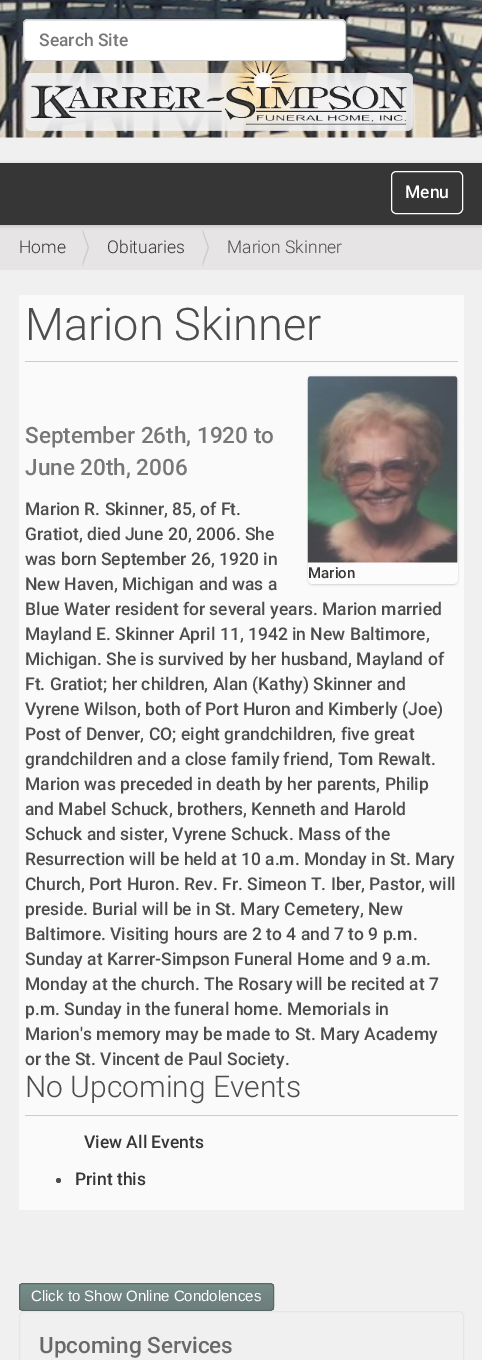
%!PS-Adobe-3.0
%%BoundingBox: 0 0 482 1360
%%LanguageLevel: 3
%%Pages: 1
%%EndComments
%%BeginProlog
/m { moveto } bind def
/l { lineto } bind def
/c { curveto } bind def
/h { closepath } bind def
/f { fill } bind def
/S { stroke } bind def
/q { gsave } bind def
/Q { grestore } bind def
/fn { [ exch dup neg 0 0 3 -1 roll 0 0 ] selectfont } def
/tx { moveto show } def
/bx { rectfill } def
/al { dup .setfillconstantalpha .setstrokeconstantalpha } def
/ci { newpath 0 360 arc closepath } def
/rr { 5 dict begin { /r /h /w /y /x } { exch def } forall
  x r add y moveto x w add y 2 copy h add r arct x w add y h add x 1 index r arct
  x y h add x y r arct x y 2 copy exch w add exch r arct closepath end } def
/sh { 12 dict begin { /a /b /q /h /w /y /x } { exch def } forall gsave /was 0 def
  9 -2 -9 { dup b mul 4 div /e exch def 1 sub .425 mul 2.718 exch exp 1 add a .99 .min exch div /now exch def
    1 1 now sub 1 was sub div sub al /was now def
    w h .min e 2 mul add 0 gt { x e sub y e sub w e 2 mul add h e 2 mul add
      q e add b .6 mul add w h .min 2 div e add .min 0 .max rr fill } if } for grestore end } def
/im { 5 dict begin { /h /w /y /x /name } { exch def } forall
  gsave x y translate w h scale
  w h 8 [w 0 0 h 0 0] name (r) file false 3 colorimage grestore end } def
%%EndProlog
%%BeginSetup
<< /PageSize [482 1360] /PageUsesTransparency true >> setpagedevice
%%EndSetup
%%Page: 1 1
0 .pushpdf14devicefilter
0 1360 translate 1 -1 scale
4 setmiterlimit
0.945 0.941 0.941 setrgbcolor
0 0 482 1360 bx
(image0.raw) 0 0 482 138 im
1 setgray
23 19 323 42 5 rr f
0.925 setgray
28 21 m 341 21 l 343 21 345 23 345 25 c 345 24 l 345 22 343 20 341 20 c 28 20 l 26 20 24 22 24 24 c 24 25 l 24 23 25 21 28 21 c h f
0.8 setgray
23.5 19.5 322 41 4.5 rr S
/Roboto-Medium 17.5 fn
0.467 setgray
(Search Site) 39 46 tx
(image1.raw) 25 61 388 70 im
0.902 0.894 0.894 setrgbcolor
0 225 482 45 bx
0 setgray
0 164 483 62 0 2 0.17 sh
0.212 setgray
0 163 482 62 bx
1 setgray
391.5 171.5 71 42 4.5 rr S
(Menu) 405 198 tx
/Roboto-Light 17.5 fn
0.212 setgray
(Home) 19 253 tx
0.8 setgray
82.5 266 m 82.5 229 l 89 247.5 l h f
0.902 0.894 0.894 setrgbcolor
81 266 m 81 229 l 87.5 247.5 l h f
0.212 setgray
(Obituaries) 107 253 tx
0.8 setgray
202.5 266 m 202.5 229 l 209 247.5 l h f
0.902 0.894 0.894 setrgbcolor
201 266 m 201 229 l 207.5 247.5 l h f
0.302 setgray
(Marion Skinner) 227 253 tx
0.98 setgray
19 295 445 915 bx
0.8 setgray
25 361 433 1 bx
/Roboto-Light 45 fn
0.302 setgray
(Marion Skinner) 25 340 tx
/Roboto-Medium 22.5 fn
0.467 setgray
(September 26th, 1920 to) 25 443 tx
(June 20th, 2006) 25 475 tx
0 setgray
308 376 150 209 5 1 0.17 sh
(image2.raw) 307 375 151 188 im
0.988 0.988 0.992 setrgbcolor
308 563 m 458 563 l 458 579 l 458 582 456 584 453 584 c 313 584 l 310 584 308 582 308 579 c h f
/Roboto-Medium 15 fn
0.212 setgray
(Marion) 308 578 tx
/Roboto-Medium 17.5 fn
0.302 setgray
(Marion R. Skinner, 85, of Ft.) 25 515 tx
(Gratiot, died June 20, 2006. She) 25 540 tx
(was born September 26, 1920 in) 25 565 tx
(New Haven, Michigan and was a) 25 590 tx
(Blue Water resident for several years. Marion married) 25 615 tx
(Mayland E. Skinner April 11, 1942 in New Baltimore,) 25 640 tx
(Michigan. She is survived by her husband, Mayland of) 25 665 tx
(Ft. Gratiot; her children, Alan \(Kathy\) Skinner and) 25 690 tx
(Vyrene Wilson, both of Port Huron and Kimberly \(Joe\)) 25 715 tx
(Post of Denver, CO; eight grandchildren, five great) 25 740 tx
(grandchildren and a close family friend, Tom Rewalt.) 25 765 tx
(Marion was preceded in death by her parents, Philip) 25 790 tx
(and Mabel Schuck, brothers, Kenneth and Harold) 25 815 tx
(Schuck and sister, Vyrene Schuck. Mass of the) 25 840 tx
(Resurrection will be held at 10 a.m. Monday in St. Mary) 25 865 tx
(Church, Port Huron. Rev. Fr. Simeon T. Iber, Pastor, will) 25 890 tx
(preside. Burial will be in St. Mary Cemetery, New) 25 915 tx
(Baltimore. Visiting hours are 2 to 4 and 7 to 9 p.m.) 25 940 tx
(Sunday at Karrer-Simpson Funeral Home and 9 a.m.) 25 965 tx
(Monday at the church. The Rosary will be recited at 7) 25 990 tx
(p.m. Sunday in the funeral home. Memorials in) 25 1015 tx
(Marion's memory may be made to St. Mary Academy) 25 1040 tx
(or the St. Vincent de Paul Society.) 25 1065 tx
0.8 setgray
25 1115 433 1 bx
/Roboto-Light 30 fn
0.302 setgray
(No Upcoming Events) 25 1097 tx
/Roboto-Medium 17.5 fn
0.212 setgray
(View All Events) 84 1148 tx
0.302 setgray
58.5 1180.5 2.5 ci f
0.212 setgray
(Print this) 75 1185 tx
q
19 1283 255 28 4 rr clip newpath
q 19 1284 m 274 1284 l 274 1310 l 19 1310 l h clip newpath
<< /ShadingType 2 /ColorSpace /DeviceRGB /Coords [146 1284 146 1310] /Extend [true true] /Function << /FunctionType 3 /Domain [0 1] /Functions [<< /FunctionType 2 /Domain [0 1] /C0 [0.463 0.553 0.529] /C1 [0.463 0.553 0.529] /N 1 >> << /FunctionType 2 /Domain [0 1] /C0 [0.463 0.553 0.529] /C1 [0.424 0.486 0.486] /N 1 >>] /Bounds [0.05] /Encode [0 1 0 1] >> >> shfill Q
Q
0.337 0.412 0.388 setrgbcolor
19.5 1283.5 254 27 3.5 rr S
/LiberationSans-Regular 15 fn
1 setgray
(Click to Show Online Condolences) 31 1301 tx
0.898 setgray
19.5 1311.5 444 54 4.5 rr S
/Roboto-Medium 22.5 fn
0.412 setgray
(Upcoming Services) 39 1353 tx
.poppdf14devicefilter showpage
%%EOF
